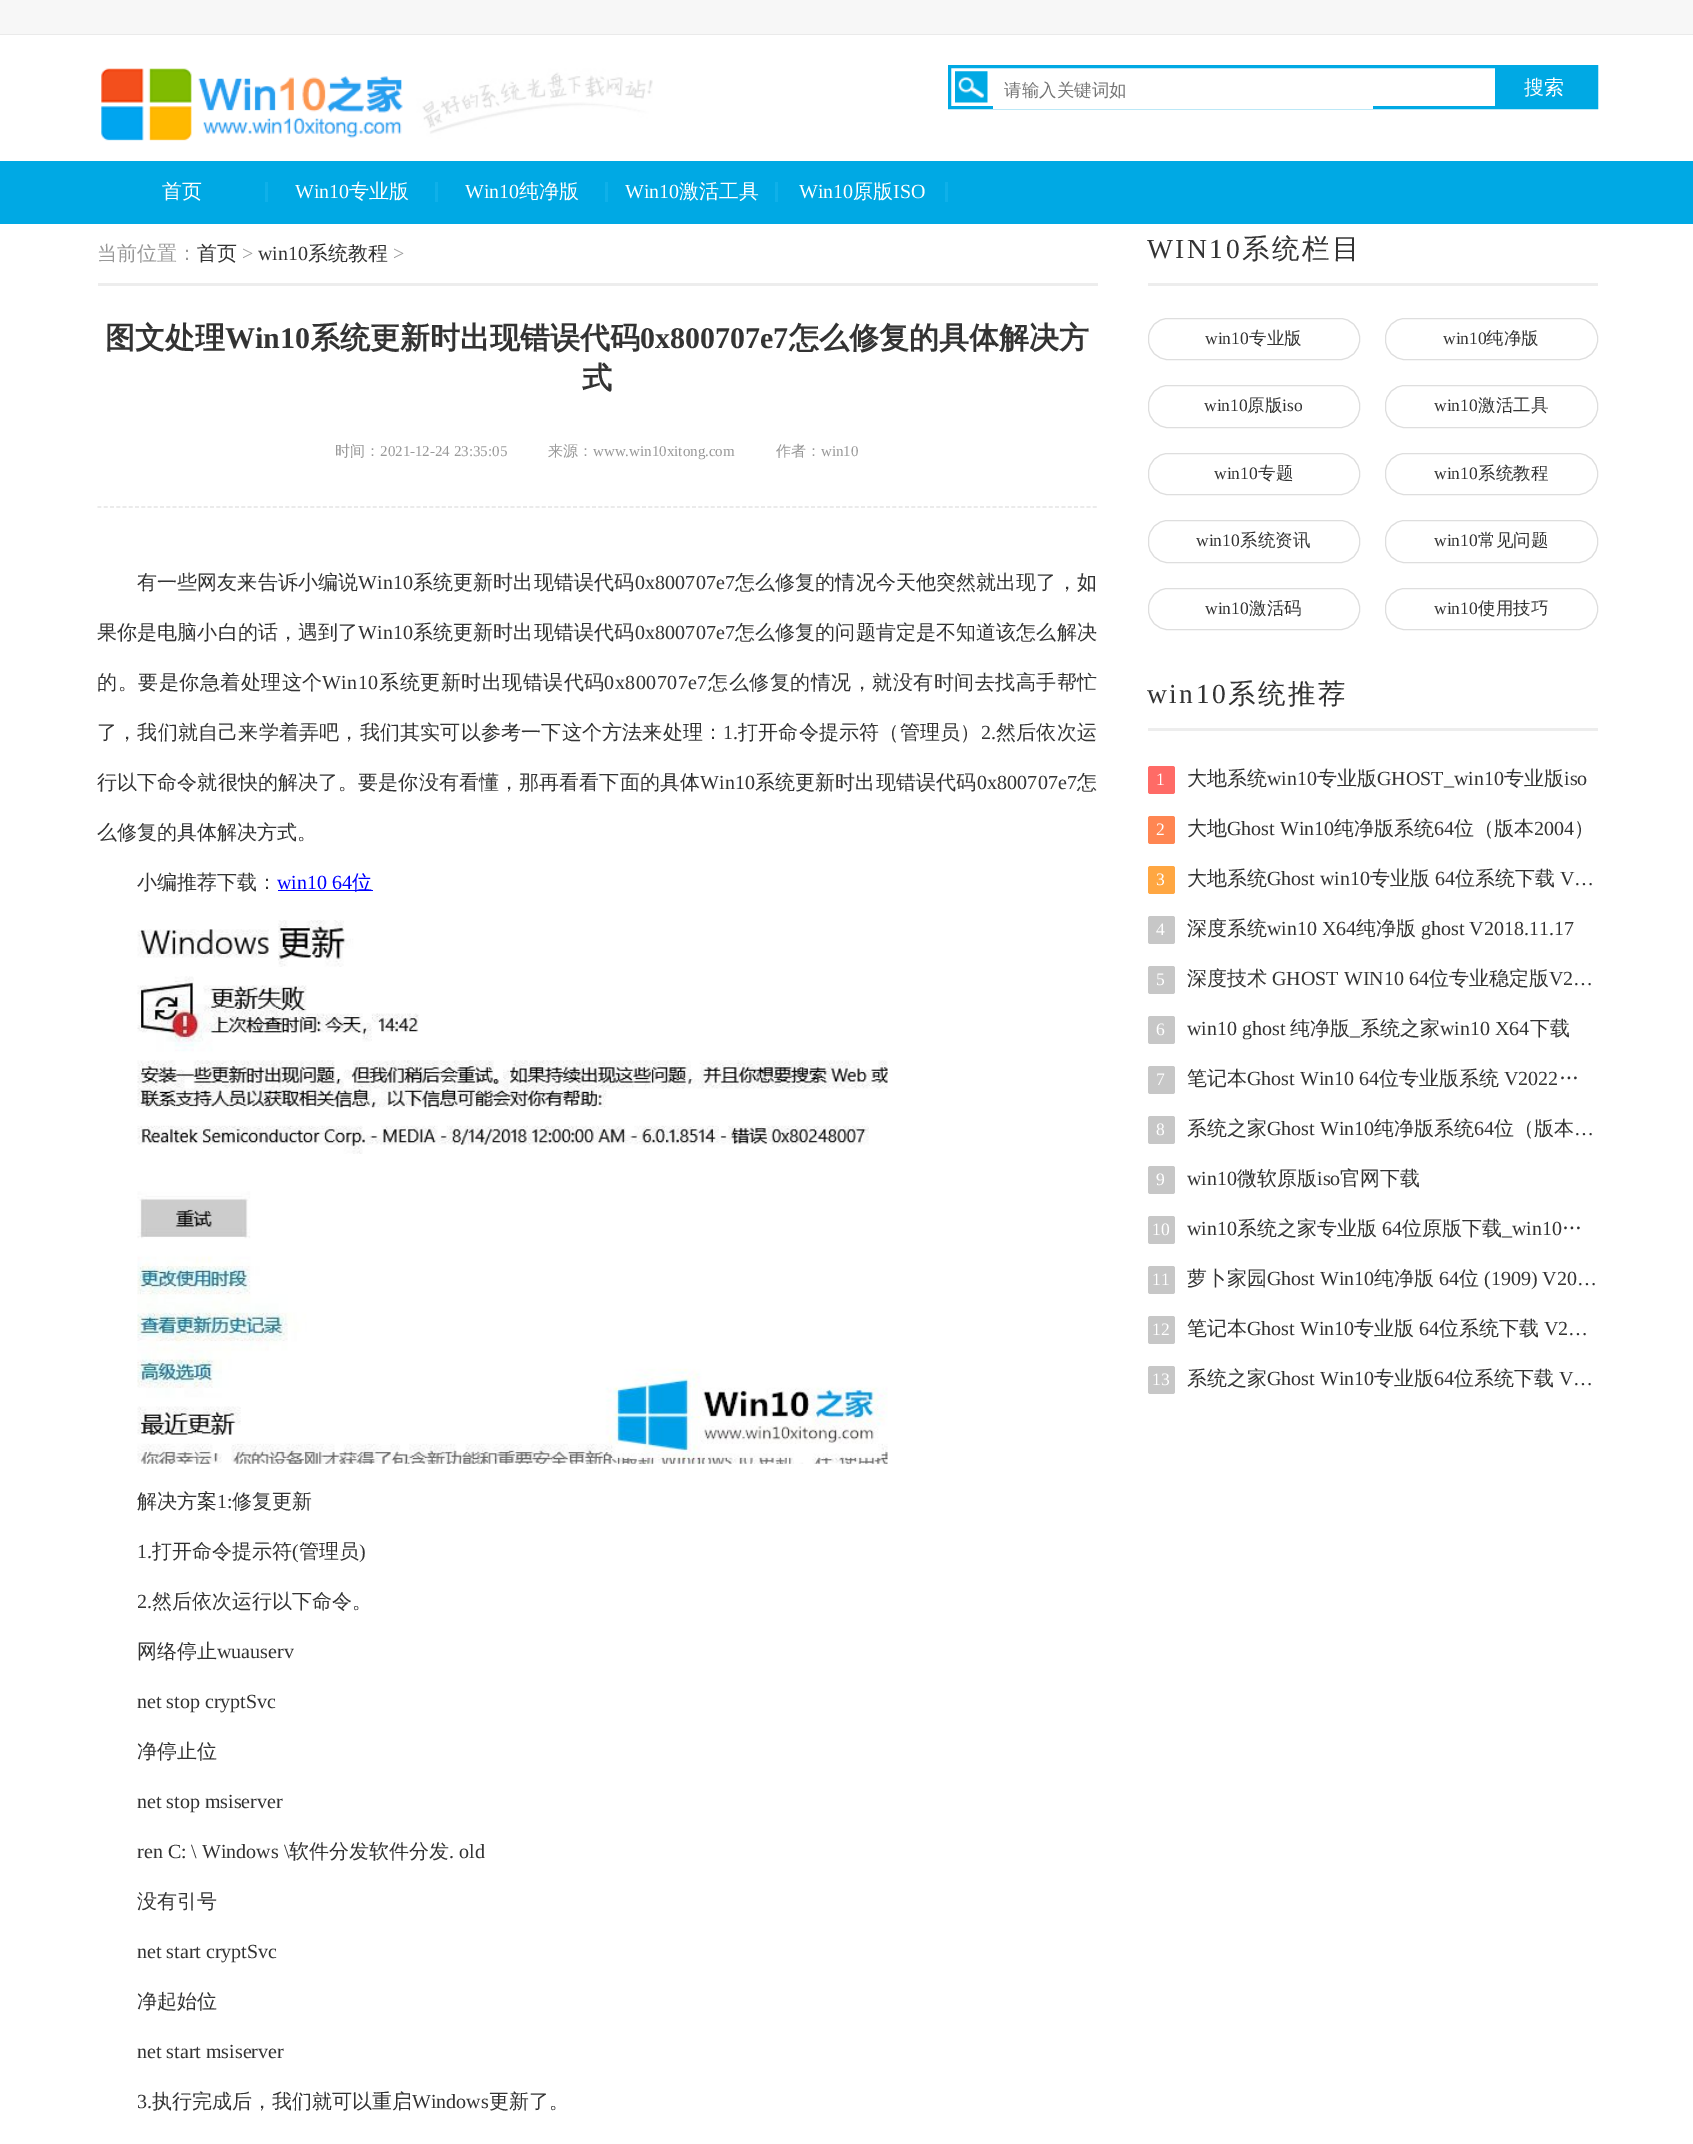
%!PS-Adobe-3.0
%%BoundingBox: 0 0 1693 2144
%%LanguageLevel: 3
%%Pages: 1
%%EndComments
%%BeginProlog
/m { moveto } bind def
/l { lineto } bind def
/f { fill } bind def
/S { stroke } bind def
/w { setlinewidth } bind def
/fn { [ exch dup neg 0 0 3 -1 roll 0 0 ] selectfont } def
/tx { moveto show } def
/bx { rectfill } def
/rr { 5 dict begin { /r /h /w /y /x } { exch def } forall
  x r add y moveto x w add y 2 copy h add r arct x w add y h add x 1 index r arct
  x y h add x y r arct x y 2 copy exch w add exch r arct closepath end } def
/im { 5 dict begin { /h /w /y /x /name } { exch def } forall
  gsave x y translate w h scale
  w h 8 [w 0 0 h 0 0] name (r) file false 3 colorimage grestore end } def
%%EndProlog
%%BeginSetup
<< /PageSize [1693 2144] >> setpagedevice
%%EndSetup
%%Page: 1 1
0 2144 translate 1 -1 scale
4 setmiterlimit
1 setgray
0 0 1693 2144 bx
0.969 setgray
0 0 1693 34 bx
0.918 setgray
0 34 1693 1 bx
(image0.raw) 101 68 552 73 im
0 0.663 0.894 setrgbcolor
3 w
949.5 66.5 647 41 rectstroke
(image1.raw) 955 71 33 32 im
1 setgray
993 106 380 3 bx
/WenQuanYiZenHei-Medium 17.5 fn
0.459 setgray
(请输入关键词如) 1004 96 tx
0 0.663 0.894 setrgbcolor
1495 68 100 38 bx
/WenQuanYiZenHei-Medium 20 fn
1 setgray
(搜索) 1524 94 tx
0 0.663 0.894 setrgbcolor
0 161 1693 63 bx
0.059 0.69 0.914 setrgbcolor
265 182 3 20 bx
1 setgray
(首页) 162 198 tx
0.059 0.69 0.914 setrgbcolor
435 182 3 20 bx
/LiberationSerif-Regular 20 fn
1 setgray
(Win10) 295 198 tx
/WenQuanYiZenHei-Medium 20 fn
(专业版) 349 198 tx
0.059 0.69 0.914 setrgbcolor
605 182 3 20 bx
/LiberationSerif-Regular 20 fn
1 setgray
(Win10) 465 198 tx
/WenQuanYiZenHei-Medium 20 fn
(纯净版) 519 198 tx
0.059 0.69 0.914 setrgbcolor
775 182 3 20 bx
/LiberationSerif-Regular 20 fn
1 setgray
(Win10) 625 198 tx
/WenQuanYiZenHei-Medium 20 fn
(激活工具) 679 198 tx
0.059 0.69 0.914 setrgbcolor
945 182 3 20 bx
/LiberationSerif-Regular 20 fn
1 setgray
(Win10) 799 198 tx
/WenQuanYiZenHei-Medium 20 fn
(原版) 853 198 tx
/LiberationSerif-Regular 20 fn
(ISO) 893 198 tx
0.929 setgray
98 283 1000 3 bx
/WenQuanYiZenHei-Medium 20 fn
0.6 setgray
(当前位置：) 97 260 tx
0.2 setgray
(首页) 197 260 tx
/LiberationSerif-Regular 20 fn
0.6 setgray
(>) 242 260 tx
0.2 setgray
(win10) 258 260 tx
/WenQuanYiZenHei-Medium 20 fn
(系统教程) 308 260 tx
/LiberationSerif-Regular 20 fn
0.6 setgray
(>) 393 260 tx
/WenQuanYiZenHei-Bold 30 fn
0.2 setgray
(图文处理) 105 348 tx
/LiberationSerif-Bold 30 fn
(Win10) 225 348 tx
/WenQuanYiZenHei-Bold 30 fn
(系统更新时出现错误代码) 310 348 tx
/LiberationSerif-Bold 30 fn
(0x800707e7) 640 348 tx
/WenQuanYiZenHei-Bold 30 fn
(怎么修复的具体解决方) 789 348 tx
(式) 582 388 tx
0.894 setgray
1.2 w
[3.75 2.51] 0 setdash
97.5 507 m 1097.5 507 l S
/WenQuanYiZenHei-Medium 15 fn
0.6 setgray
(时间：) 335 456 tx
/LiberationSerif-Regular 15 fn
(2021-12-24 23:35:05) 380 456 tx
/WenQuanYiZenHei-Medium 15 fn
(来源：) 548 456 tx
/LiberationSerif-Regular 15 fn
(www.win10xitong.com) 593 456 tx
/WenQuanYiZenHei-Medium 15 fn
(作者：) 776 456 tx
/LiberationSerif-Regular 15 fn
(win10) 821 456 tx
/WenQuanYiZenHei-Medium 20 fn
0.2 setgray
137 589 m 0.1 0 (有一些网友来告诉小编说) ashow
/LiberationSerif-Regular 20 fn
358 589 m 0.1 0 (Win10) ashow
/WenQuanYiZenHei-Medium 20 fn
413 589 m 0.1 0 (系统更新时出现错误代码) ashow
/LiberationSerif-Regular 20 fn
635 589 m 0.1 0 (0x800707e7) ashow
/WenQuanYiZenHei-Medium 20 fn
735 589 m 0.1 0 (怎么修复的情况今天他突然就出现了，如) ashow
97 639 m 0.1 0 (果你是电脑小白的话，遇到了) ashow
/LiberationSerif-Regular 20 fn
358 639 m 0.1 0 (Win10) ashow
/WenQuanYiZenHei-Medium 20 fn
413 639 m 0.1 0 (系统更新时出现错误代码) ashow
/LiberationSerif-Regular 20 fn
635 639 m 0.1 0 (0x800707e7) ashow
/WenQuanYiZenHei-Medium 20 fn
735 639 m 0.1 0 (怎么修复的问题肯定是不知道该怎么解决) ashow
97 689 m 0.5 0 (的。要是你急着处理这个) ashow
/LiberationSerif-Regular 20 fn
322 689 m 0.5 0 (Win10) ashow
/WenQuanYiZenHei-Medium 20 fn
379 689 m 0.5 0 (系统更新时出现错误代码) ashow
/LiberationSerif-Regular 20 fn
604 689 m 0.5 0 (0x800707e7) ashow
/WenQuanYiZenHei-Medium 20 fn
708 689 m 0.5 0 (怎么修复的情况，就没有时间去找高手帮忙) ashow
97 739 m 0.2 0 (了，我们就自己来学着弄吧，我们其实可以参考一下这个方法来处理：) ashow
/LiberationSerif-Regular 20 fn
723 739 m 0.2 0 (1.) ashow
/WenQuanYiZenHei-Medium 20 fn
738 739 m 0.2 0 (打开命令提示符（管理员）) ashow
/LiberationSerif-Regular 20 fn
981 739 m 0.2 0 (2.) ashow
/WenQuanYiZenHei-Medium 20 fn
996 739 m 0.2 0 (然后依次运) ashow
97 789 m 0.1 0 (行以下命令就很快的解决了。要是你没有看懂，那再看看下面的具体) ashow
/LiberationSerif-Regular 20 fn
700 789 m 0.1 0 (Win10) ashow
/WenQuanYiZenHei-Medium 20 fn
755 789 m 0.1 0 (系统更新时出现错误代码) ashow
/LiberationSerif-Regular 20 fn
977 789 m 0.1 0 (0x800707e7) ashow
/WenQuanYiZenHei-Medium 20 fn
1077 789 m 0.1 0 (怎) ashow
(么修复的具体解决方式。) 97 839 tx
(小编推荐下载：) 137 889 tx
/LiberationSerif-Regular 20 fn
0 0 1 setrgbcolor
(win10 64) 277 889 tx
278 890 95 1 bx
/WenQuanYiZenHei-Medium 20 fn
(位) 352 889 tx
(image2.raw) 137 920 751 544 im
0.2 setgray
(解决方案) 137 1508 tx
/LiberationSerif-Regular 20 fn
(1:) 217 1508 tx
/WenQuanYiZenHei-Medium 20 fn
(修复更新) 232 1508 tx
/LiberationSerif-Regular 20 fn
(1.) 137 1558 tx
/WenQuanYiZenHei-Medium 20 fn
(打开命令提示符) 152 1558 tx
/LiberationSerif-Regular 20 fn
(\() 292 1558 tx
/WenQuanYiZenHei-Medium 20 fn
(管理员) 299 1558 tx
/LiberationSerif-Regular 20 fn
(\)) 359 1558 tx
(2.) 137 1608 tx
/WenQuanYiZenHei-Medium 20 fn
(然后依次运行以下命令。) 152 1608 tx
(网络停止) 137 1658 tx
/LiberationSerif-Regular 20 fn
(wuauserv) 217 1658 tx
(net stop cryptSvc) 137 1708 tx
/WenQuanYiZenHei-Medium 20 fn
(净停止位) 137 1758 tx
/LiberationSerif-Regular 20 fn
(net stop msiserver) 137 1808 tx
(ren C: \\ Windows \\) 137 1858 tx
/WenQuanYiZenHei-Medium 20 fn
(软件分发软件分发) 289 1858 tx
/LiberationSerif-Regular 20 fn
(. old) 449 1858 tx
/WenQuanYiZenHei-Medium 20 fn
(没有引号) 137 1908 tx
/LiberationSerif-Regular 20 fn
(net start cryptSvc) 137 1958 tx
/WenQuanYiZenHei-Medium 20 fn
(净起始位) 137 2008 tx
/LiberationSerif-Regular 20 fn
(net start msiserver) 137 2058 tx
(3.) 137 2108 tx
/WenQuanYiZenHei-Medium 20 fn
(执行完成后，我们就可以重启) 152 2108 tx
/LiberationSerif-Regular 20 fn
(Windows) 412 2108 tx
/WenQuanYiZenHei-Medium 20 fn
(更新了。) 489 2108 tx
0.929 setgray
1148 283 450 3 bx
/LiberationSerif-Regular 27.5 fn
0.2 setgray
1147 258 m 2.5 0 (WIN10) ashow
/WenQuanYiZenHei-Medium 27.5 fn
1242 258 m 2.5 0 (系统栏目) ashow
0.871 setgray
1 w
[] 0 setdash
1148.5 318.5 211 41 19.5 rr S
/LiberationSerif-Regular 17.5 fn
0.2 setgray
(win10) 1205 344 tx
/WenQuanYiZenHei-Medium 17.5 fn
(专业版) 1249 344 tx
0.871 setgray
1385.5 318.5 212 41 19.5 rr S
/LiberationSerif-Regular 17.5 fn
0.2 setgray
(win10) 1443 344 tx
/WenQuanYiZenHei-Medium 17.5 fn
(纯净版) 1486 344 tx
0.871 setgray
1148.5 385.5 211 42 19.5 rr S
/LiberationSerif-Regular 17.5 fn
0.2 setgray
(win10) 1204 411 tx
/WenQuanYiZenHei-Medium 17.5 fn
(原版) 1247 411 tx
/LiberationSerif-Regular 17.5 fn
(iso) 1282 411 tx
0.871 setgray
1385.5 385.5 212 42 19.5 rr S
0.2 setgray
(win10) 1434 411 tx
/WenQuanYiZenHei-Medium 17.5 fn
(激活工具) 1478 411 tx
0.871 setgray
1148.5 453.5 211 41 19.5 rr S
/LiberationSerif-Regular 17.5 fn
0.2 setgray
(win10) 1214 479 tx
/WenQuanYiZenHei-Medium 17.5 fn
(专题) 1258 479 tx
0.871 setgray
1385.5 453.5 212 41 19.5 rr S
/LiberationSerif-Regular 17.5 fn
0.2 setgray
(win10) 1434 479 tx
/WenQuanYiZenHei-Medium 17.5 fn
(系统教程) 1478 479 tx
0.871 setgray
1148.5 520.5 211 42 19.5 rr S
/LiberationSerif-Regular 17.5 fn
0.2 setgray
(win10) 1196 546 tx
/WenQuanYiZenHei-Medium 17.5 fn
(系统资讯) 1240 546 tx
0.871 setgray
1385.5 520.5 212 42 19.5 rr S
/LiberationSerif-Regular 17.5 fn
0.2 setgray
(win10) 1434 546 tx
/WenQuanYiZenHei-Medium 17.5 fn
(常见问题) 1478 546 tx
0.871 setgray
1148.5 588.5 211 41 19.5 rr S
/LiberationSerif-Regular 17.5 fn
0.2 setgray
(win10) 1205 614 tx
/WenQuanYiZenHei-Medium 17.5 fn
(激活码) 1249 614 tx
0.871 setgray
1385.5 588.5 212 41 19.5 rr S
/LiberationSerif-Regular 17.5 fn
0.2 setgray
(win10) 1434 614 tx
/WenQuanYiZenHei-Medium 17.5 fn
(使用技巧) 1478 614 tx
0.929 setgray
1148 728 450 3 bx
/LiberationSerif-Regular 27.5 fn
0.2 setgray
1147 703 m 2.5 0 (win10) ashow
/WenQuanYiZenHei-Medium 27.5 fn
1228 703 m 2.5 0 (系统推荐) ashow
1 0.42 0.4 setrgbcolor
1148 766 27 28 2.5 rr f
/LiberationSerif-Regular 17.5 fn
1 setgray
(1) 1156 785 tx
/WenQuanYiZenHei-Medium 20 fn
0.2 setgray
(大地系统) 1187 785 tx
/LiberationSerif-Regular 20 fn
(win10) 1267 785 tx
/WenQuanYiZenHei-Medium 20 fn
(专业版) 1317 785 tx
/LiberationSerif-Regular 20 fn
(GHOST_win10) 1377 785 tx
/WenQuanYiZenHei-Medium 20 fn
(专业版) 1504 785 tx
/LiberationSerif-Regular 20 fn
(iso) 1564 785 tx
1 0.525 0.322 setrgbcolor
1148 816 27 28 2.5 rr f
/LiberationSerif-Regular 17.5 fn
1 setgray
(2) 1156 835 tx
/WenQuanYiZenHei-Medium 20 fn
0.2 setgray
(大地) 1187 835 tx
/LiberationSerif-Regular 20 fn
(Ghost Win10) 1227 835 tx
/WenQuanYiZenHei-Medium 20 fn
(纯净版系统) 1334 835 tx
/LiberationSerif-Regular 20 fn
(64) 1434 835 tx
/WenQuanYiZenHei-Medium 20 fn
(位（版本) 1454 835 tx
/LiberationSerif-Regular 20 fn
(2004) 1534 835 tx
/WenQuanYiZenHei-Medium 20 fn
(）) 1574 835 tx
1 0.655 0.259 setrgbcolor
1148 866 27 28 2.5 rr f
/LiberationSerif-Regular 17.5 fn
1 setgray
(3) 1156 885 tx
/WenQuanYiZenHei-Medium 20 fn
0.2 setgray
(大地系统) 1187 885 tx
/LiberationSerif-Regular 20 fn
(Ghost win10) 1267 885 tx
/WenQuanYiZenHei-Medium 20 fn
(专业版) 1370 885 tx
/LiberationSerif-Regular 20 fn
(64) 1435 885 tx
/WenQuanYiZenHei-Medium 20 fn
(位系统下载) 1455 885 tx
/LiberationSerif-Regular 20 fn
(V…) 1560 885 tx
0.78 setgray
1148 916 27 28 2.5 rr f
/LiberationSerif-Regular 17.5 fn
1 setgray
(4) 1156 935 tx
/WenQuanYiZenHei-Medium 20 fn
0.2 setgray
(深度系统) 1187 935 tx
/LiberationSerif-Regular 20 fn
(win10 X64) 1267 935 tx
/WenQuanYiZenHei-Medium 20 fn
(纯净版) 1356 935 tx
/LiberationSerif-Regular 20 fn
(ghost V2018.11.17) 1421 935 tx
0.78 setgray
1148 966 27 28 2.5 rr f
/LiberationSerif-Regular 17.5 fn
1 setgray
(5) 1156 985 tx
/WenQuanYiZenHei-Medium 20 fn
0.2 setgray
(深度技术) 1187 985 tx
/LiberationSerif-Regular 20 fn
(GHOST WIN10 64) 1272 985 tx
/WenQuanYiZenHei-Medium 20 fn
(位专业稳定版) 1429 985 tx
/LiberationSerif-Regular 20 fn
(V2…) 1549 985 tx
0.78 setgray
1148 1016 27 28 2.5 rr f
/LiberationSerif-Regular 17.5 fn
1 setgray
(6) 1156 1035 tx
/LiberationSerif-Regular 20 fn
0.2 setgray
(win10 ghost) 1187 1035 tx
/WenQuanYiZenHei-Medium 20 fn
(纯净版) 1290 1035 tx
/LiberationSerif-Regular 20 fn
(_) 1350 1035 tx
/WenQuanYiZenHei-Medium 20 fn
(系统之家) 1360 1035 tx
/LiberationSerif-Regular 20 fn
(win10 X64) 1440 1035 tx
/WenQuanYiZenHei-Medium 20 fn
(下载) 1530 1035 tx
0.78 setgray
1148 1066 27 28 2.5 rr f
/LiberationSerif-Regular 17.5 fn
1 setgray
(7) 1156 1085 tx
/WenQuanYiZenHei-Medium 20 fn
0.2 setgray
(笔记本) 1187 1085 tx
/LiberationSerif-Regular 20 fn
(Ghost Win10 64) 1247 1085 tx
/WenQuanYiZenHei-Medium 20 fn
(位专业版系统) 1379 1085 tx
/LiberationSerif-Regular 20 fn
(V2022) 1504 1085 tx
/WenQuanYiZenHei-Medium 20 fn
(…) 1559 1085 tx
0.78 setgray
1148 1116 27 28 2.5 rr f
/LiberationSerif-Regular 17.5 fn
1 setgray
(8) 1156 1135 tx
/WenQuanYiZenHei-Medium 20 fn
0.2 setgray
(系统之家) 1187 1135 tx
/LiberationSerif-Regular 20 fn
(Ghost Win10) 1267 1135 tx
/WenQuanYiZenHei-Medium 20 fn
(纯净版系统) 1374 1135 tx
/LiberationSerif-Regular 20 fn
(64) 1474 1135 tx
/WenQuanYiZenHei-Medium 20 fn
(位（版本) 1494 1135 tx
/LiberationSerif-Regular 20 fn
(…) 1574 1135 tx
0.78 setgray
1148 1166 27 28 2.5 rr f
/LiberationSerif-Regular 17.5 fn
1 setgray
(9) 1156 1185 tx
/LiberationSerif-Regular 20 fn
0.2 setgray
(win10) 1187 1185 tx
/WenQuanYiZenHei-Medium 20 fn
(微软原版) 1237 1185 tx
/LiberationSerif-Regular 20 fn
(iso) 1317 1185 tx
/WenQuanYiZenHei-Medium 20 fn
(官网下载) 1340 1185 tx
0.78 setgray
1148 1216 27 28 2.5 rr f
/LiberationSerif-Regular 17.5 fn
1 setgray
(10) 1152 1235 tx
/LiberationSerif-Regular 20 fn
0.2 setgray
(win10) 1187 1235 tx
/WenQuanYiZenHei-Medium 20 fn
(系统之家专业版) 1237 1235 tx
/LiberationSerif-Regular 20 fn
(64) 1382 1235 tx
/WenQuanYiZenHei-Medium 20 fn
(位原版下载) 1402 1235 tx
/LiberationSerif-Regular 20 fn
(_win10) 1502 1235 tx
/WenQuanYiZenHei-Medium 20 fn
(…) 1562 1235 tx
0.78 setgray
1148 1266 27 28 2.5 rr f
/LiberationSerif-Regular 17.5 fn
1 setgray
(11) 1152 1285 tx
/WenQuanYiZenHei-Medium 20 fn
0.2 setgray
(萝卜家园) 1187 1285 tx
/LiberationSerif-Regular 20 fn
(Ghost Win10) 1267 1285 tx
/WenQuanYiZenHei-Medium 20 fn
(纯净版) 1374 1285 tx
/LiberationSerif-Regular 20 fn
(64) 1439 1285 tx
/WenQuanYiZenHei-Medium 20 fn
(位) 1459 1285 tx
/LiberationSerif-Regular 20 fn
(\(1909\) V20…) 1484 1285 tx
0.78 setgray
1148 1316 27 28 2.5 rr f
/LiberationSerif-Regular 17.5 fn
1 setgray
(12) 1152 1335 tx
/WenQuanYiZenHei-Medium 20 fn
0.2 setgray
(笔记本) 1187 1335 tx
/LiberationSerif-Regular 20 fn
(Ghost Win10) 1247 1335 tx
/WenQuanYiZenHei-Medium 20 fn
(专业版) 1354 1335 tx
/LiberationSerif-Regular 20 fn
(64) 1419 1335 tx
/WenQuanYiZenHei-Medium 20 fn
(位系统下载) 1439 1335 tx
/LiberationSerif-Regular 20 fn
(V2…) 1544 1335 tx
0.78 setgray
1148 1366 27 28 2.5 rr f
/LiberationSerif-Regular 17.5 fn
1 setgray
(13) 1152 1385 tx
/WenQuanYiZenHei-Medium 20 fn
0.2 setgray
(系统之家) 1187 1385 tx
/LiberationSerif-Regular 20 fn
(Ghost Win10) 1267 1385 tx
/WenQuanYiZenHei-Medium 20 fn
(专业版) 1374 1385 tx
/LiberationSerif-Regular 20 fn
(64) 1434 1385 tx
/WenQuanYiZenHei-Medium 20 fn
(位系统下载) 1454 1385 tx
/LiberationSerif-Regular 20 fn
(V…) 1559 1385 tx
showpage
%%EOF
